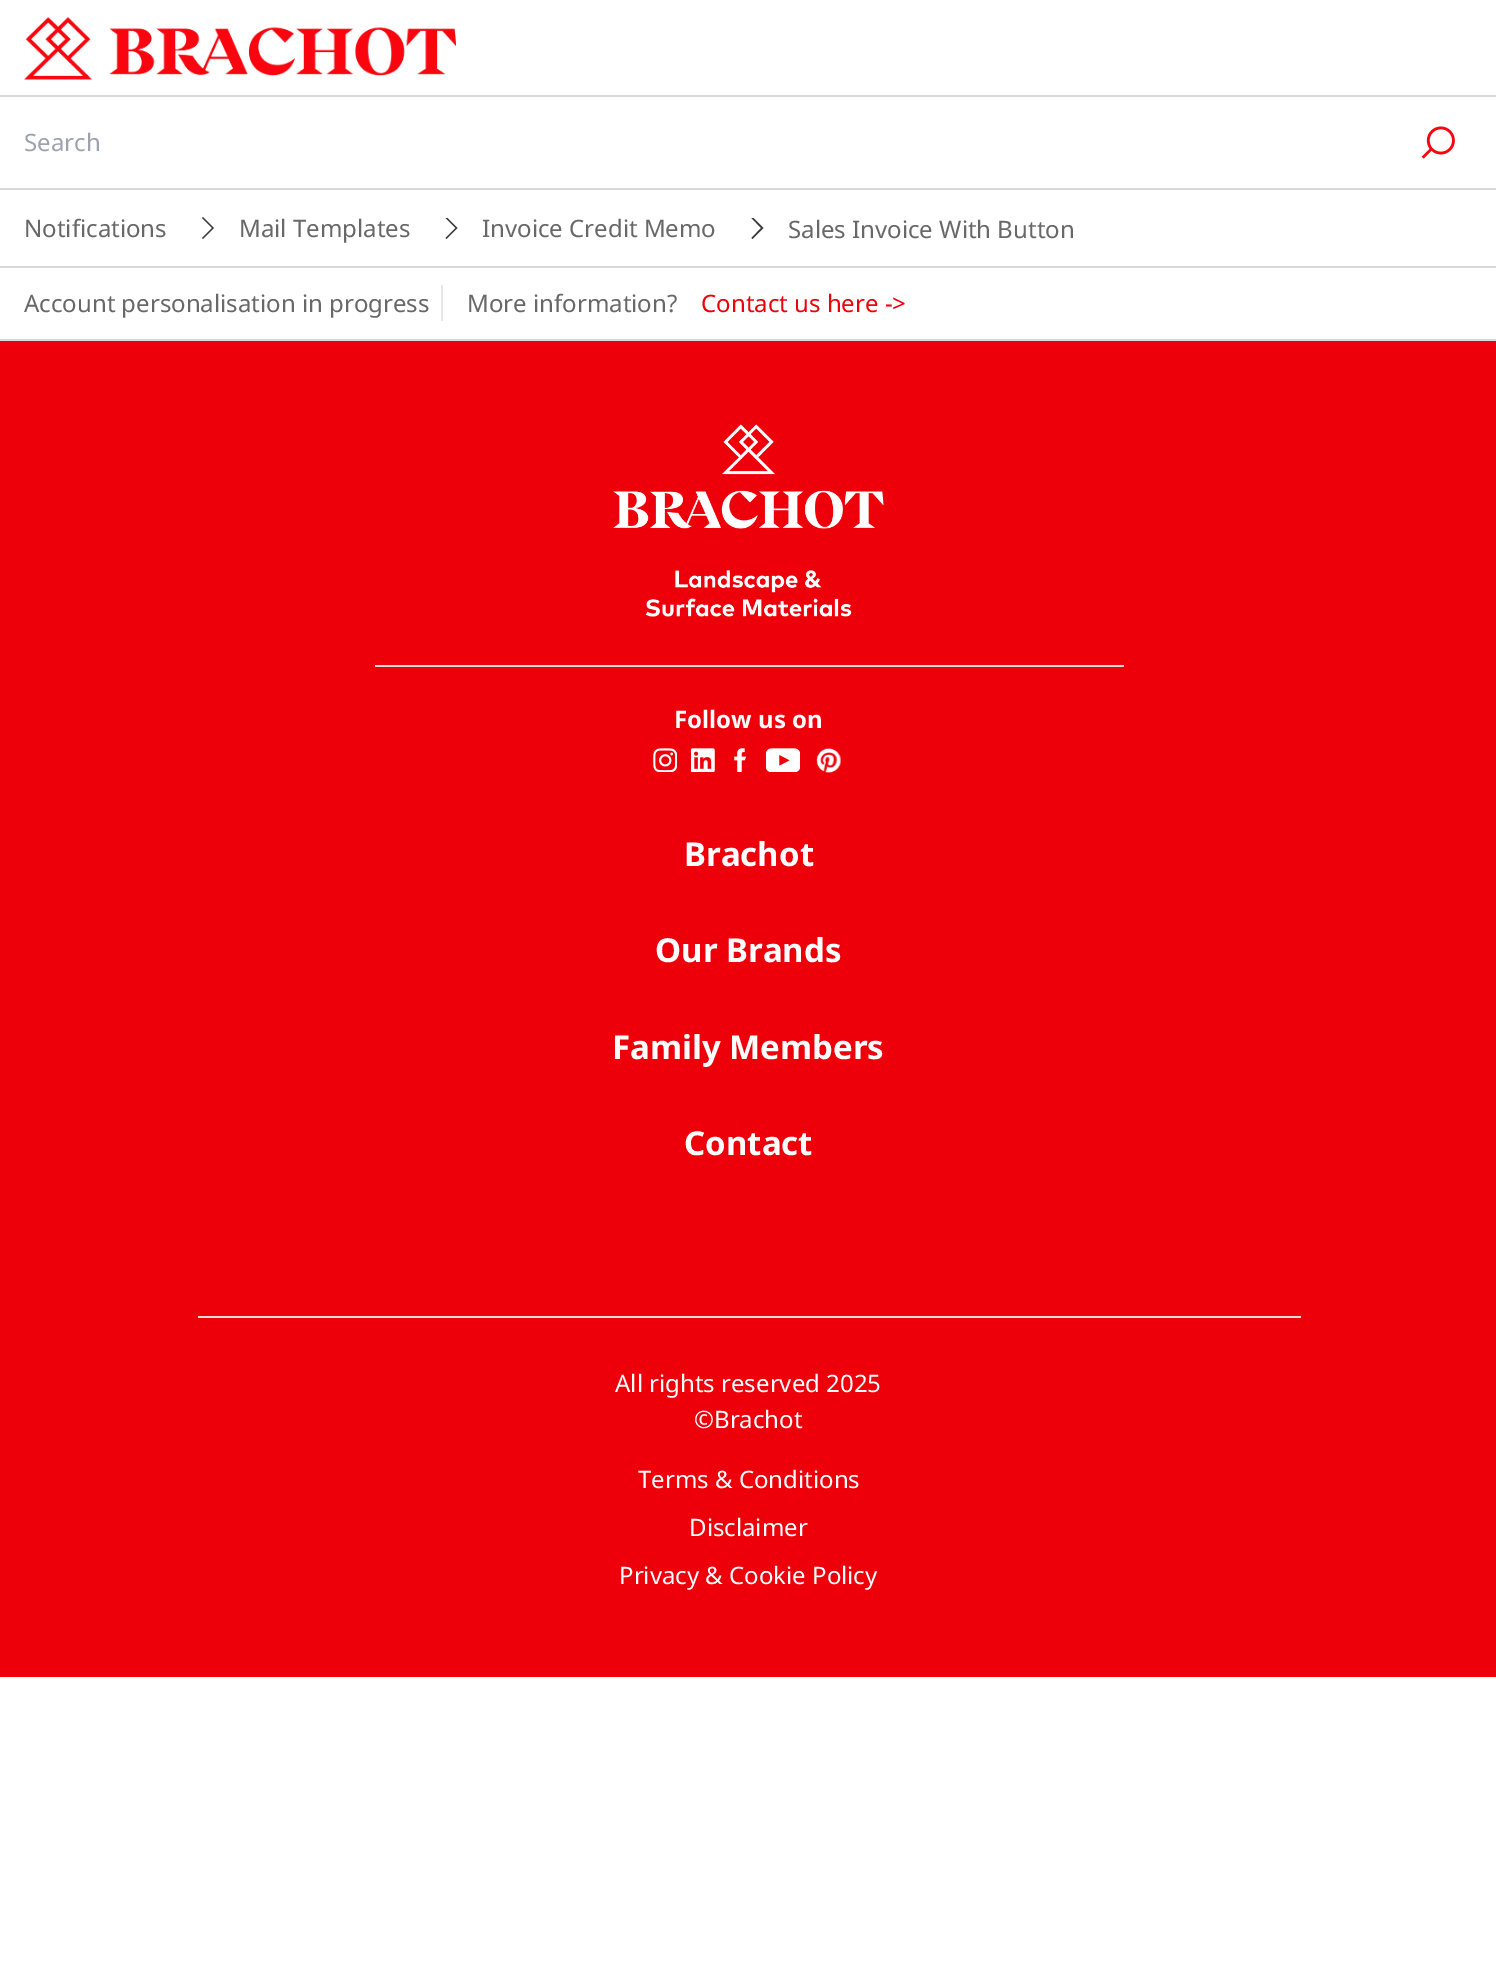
%!PS-Adobe-3.0
%%BoundingBox: 0 0 1496 1979
%%LanguageLevel: 3
%%Pages: 1
%%EndComments
%%BeginProlog
/m { moveto } bind def
/l { lineto } bind def
/h { closepath } bind def
/f { fill } bind def
/q { gsave } bind def
/Q { grestore } bind def
/fn { [ exch dup neg 0 0 3 -1 roll 0 0 ] selectfont } def
/tx { moveto show } def
/bx { rectfill } def
/im { 5 dict begin { /h /w /y /x /name } { exch def } forall
  gsave x y translate w h scale
  w h 8 [w 0 0 h 0 0] name (r) file false 3 colorimage grestore end } def
%%EndProlog
%%BeginSetup
<< /PageSize [1496 1979] >> setpagedevice
%%EndSetup
%%Page: 1 1
0 1979 translate 1 -1 scale
4 setmiterlimit
1 setgray
0 0 1496 1979 bx
(image0.raw) 24 16 432 64 im
0.851 setgray
0 95 1496 2 bx
0 188 1496 2 bx
/NotoSans-Regular 24 fn
0.612 0.639 0.686 setrgbcolor
(Search) 24 151 tx
(image1.raw) 1421 126 34 33 im
0.851 setgray
0 266 1496 2 bx
0.408 setgray
(Notifications) 24 237 tx
0.227 setgray
214 228 m 203 217 l 202 218 l 212 228 l 202 238 l 203 239 l h f
0.408 setgray
(Mail Templates) 239 237 tx
q
444 218 14 24 rectclip
0.227 setgray
457.5 228 m 446.5 217 l 445.5 218 l 455.5 228 l 445.5 238 l 446.5 239 l h f
Q
(Invoice Credit Memo) 482 237 tx
q
750 218 14 24 rectclip
0.227 setgray
763.5 228 m 752.5 217 l 751.5 218 l 761 228 l 751.5 238 l 752.5 239 l h f
Q
(Sales Invoice With Button) 788 238 tx
0.851 setgray
0 339 1496 2 bx
0.906 setgray
441 285 2 36 bx
0.408 setgray
(Account personalisation in progress) 24 312 tx
(More information?) 467 312 tx
0.929 0 0.039 setrgbcolor
(Contact us here ->) 701 312 tx
0 341 1496 1336 bx
(image2.raw) 613 424 271 193 im
0.851 setgray
375 665 749 2 bx
/NotoSans-Bold 24 fn
1 setgray
(Follow us on) 674 728 tx
(image3.raw) 653 748 24 24 im
(image4.raw) 691 748 24 24 im
(image5.raw) 734 748 13 24 im
(image6.raw) 766 748 34 24 im
(image7.raw) 816 748 25 25 im
/NotoSans-Bold 33 fn
(Brachot) 684 866 tx
(Our Brands) 655 962 tx
(Family Members) 612 1059 tx
(Contact) 684 1155 tx
0.851 setgray
198 1316 1103 2 bx
/NotoSans-Regular 24 fn
1 setgray
(All rights reserved 2025) 615 1392 tx
(©Brachot) 694 1428 tx
(Terms & Conditions) 638 1488 tx
(Disclaimer) 689 1536 tx
(Privacy & Cookie Policy) 619 1584 tx
showpage
%%EOF
